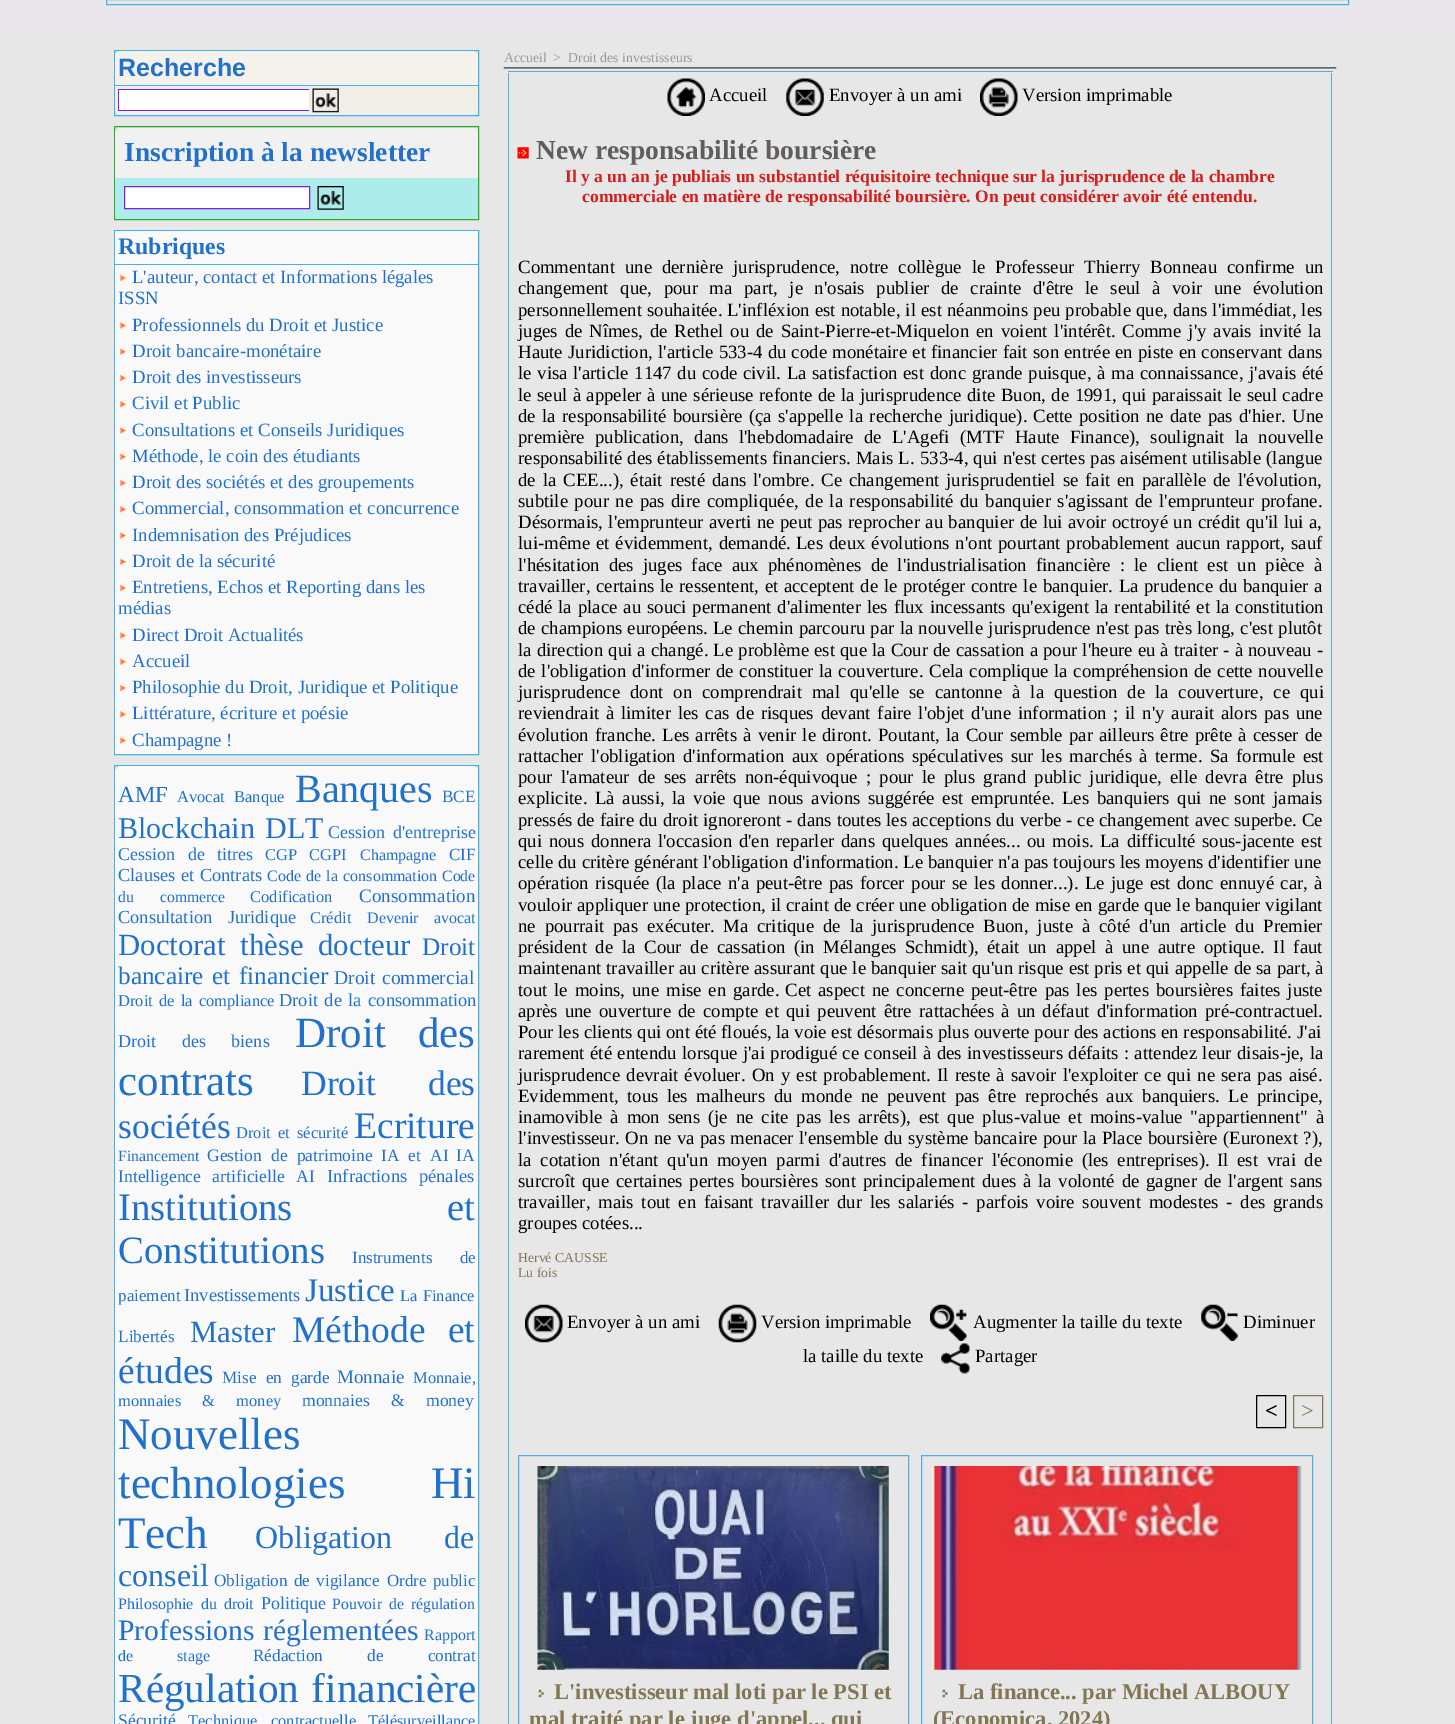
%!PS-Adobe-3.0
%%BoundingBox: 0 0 1455 1724
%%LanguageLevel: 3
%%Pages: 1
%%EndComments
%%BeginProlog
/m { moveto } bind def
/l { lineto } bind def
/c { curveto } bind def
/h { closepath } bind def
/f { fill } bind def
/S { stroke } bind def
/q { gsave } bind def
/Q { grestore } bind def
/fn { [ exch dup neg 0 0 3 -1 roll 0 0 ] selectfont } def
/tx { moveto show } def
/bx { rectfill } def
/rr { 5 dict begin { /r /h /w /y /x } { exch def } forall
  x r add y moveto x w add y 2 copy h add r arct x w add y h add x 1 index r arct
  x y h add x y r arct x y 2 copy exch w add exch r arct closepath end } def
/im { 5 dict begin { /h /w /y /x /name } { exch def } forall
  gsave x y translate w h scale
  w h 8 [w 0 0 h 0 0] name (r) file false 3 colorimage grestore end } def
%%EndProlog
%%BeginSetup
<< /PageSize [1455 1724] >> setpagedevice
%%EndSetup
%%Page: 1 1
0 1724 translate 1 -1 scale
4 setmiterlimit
0.906 setgray
0 0 1455 1724 bx
0.922 0.902 0.922 setrgbcolor
1 0 1453 37 bx
0.906 setgray
106.5 -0.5 m 1348.5 -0.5 l 1348.5 4.5 l 106.5 4.5 l h q f Q
0.247 0.71 0.89 setrgbcolor
S
114.5 50.5 364 65 rectstroke
0.961 0.945 0.922 setrgbcolor
121 51 m 472 51 l 475.5 51 478 53.5 478 57 c 478 86 l 115 86 l 115 57 l 115 53.5 117.5 51 121 51 c h f
0.247 0.71 0.89 setrgbcolor
115 85 363 1 bx
/LiberationSans-Bold 25 fn
0.129 0.443 0.8 setrgbcolor
(Recherche) 118 76 tx
0.941 0.933 0.906 setrgbcolor
115 86 m 478 86 l 478 109 l 478 112.5 475.5 115 472 115 c 121 115 l 117.5 115 115 112.5 115 109 c h f
1 setgray
119 90 190 20 bx
0.486 0.125 0.902 setrgbcolor
118 89 191 1 bx
118 110 191 1 bx
118 89 1 22 bx
(image0.raw) 312 88 27 25 im
0.161 0.678 0.161 setrgbcolor
114.5 126.5 364 93 rectstroke
0.945 setgray
121 128 m 472 128 l 475.5 128 478 130.5 478 134 c 478 178 l 115 178 l 115 134 l 115 130.5 117.5 128 121 128 c h f
/LiberationSerif-Bold 27.5 fn
0.129 0.443 0.8 setrgbcolor
(Inscription à la newsletter) 124 161 tx
0.682 0.922 0.922 setrgbcolor
115 178 m 478 178 l 478 213 l 478 216.5 475.5 219 472 219 c 121 219 l 117.5 219 115 216.5 115 213 c h f
1 setgray
124.5 186.5 m 309.5 186.5 l 309.5 208.5 l 124.5 208.5 l h q f Q
0.486 0.125 0.902 setrgbcolor
S
(image1.raw) 317 186 27 24 im
0.247 0.71 0.89 setrgbcolor
114.5 230.5 364 524 rectstroke
0.976 setgray
115 231 363 33 bx
0.247 0.71 0.89 setrgbcolor
115 264 363 1 bx
/LiberationSerif-Bold 23.75 fn
0.129 0.443 0.8 setrgbcolor
(Rubriques) 118 254 tx
0.976 setgray
115 265 363 489 bx
(image2.raw) 119 274 8 8 im
/LiberationSerif-Regular 18.75 fn
0.129 0.443 0.8 setrgbcolor
(L'auteur, contact et Informations légales) 132 283 tx
(ISSN) 118 304 tx
(image3.raw) 119 322 8 7 im
(Professionnels du Droit et Justice) 132 331 tx
(image4.raw) 119 348 8 7 im
(Droit bancaire-monétaire) 132 357 tx
(image2.raw) 119 374 8 8 im
(Droit des investisseurs) 132 383 tx
(image5.raw) 119 400 8 8 im
(Civil et Public) 132 409 tx
(image3.raw) 119 427 8 7 im
(Consultations et Conseils Juridiques) 132 436 tx
(image4.raw) 119 453 8 7 im
(Méthode, le coin des étudiants) 132 462 tx
(image2.raw) 119 479 8 8 im
(Droit des sociétés et des groupements) 132 488 tx
(image6.raw) 119 505 8 8 im
(Commercial, consommation et concurrence) 132 514 tx
(image3.raw) 119 532 8 7 im
(Indemnisation des Préjudices) 132 541 tx
(image4.raw) 119 558 8 7 im
(Droit de la sécurité) 132 567 tx
(image2.raw) 119 584 8 8 im
(Entretiens, Echos et Reporting dans les) 132 593 tx
(médias) 118 614 tx
(image3.raw) 119 632 8 7 im
(Direct Droit Actualités) 132 641 tx
(image4.raw) 119 658 8 7 im
(Accueil) 132 667 tx
(image2.raw) 119 684 8 8 im
(Philosophie du Droit, Juridique et Politique) 132 693 tx
(image6.raw) 119 710 8 8 im
(Littérature, écriture et poésie) 132 719 tx
(image3.raw) 119 737 8 7 im
(Champagne !) 132 746 tx
0.247 0.71 0.89 setrgbcolor
114.5 765.5 364 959 rectstroke
0.976 setgray
115 766 363 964 6 rr f
/LiberationSerif-Regular 23 fn
0.129 0.443 0.8 setrgbcolor
(AMF) 118 802 tx
/LiberationSerif-Regular 16.5 fn
(Avocat) 177 802 tx
(Banque) 234 802 tx
/LiberationSerif-Regular 40 fn
(Banques) 295 802 tx
/LiberationSerif-Regular 17.2 fn
(BCE) 442 802 tx
/LiberationSerif-Regular 30 fn
118 838 m 2.75 0 32 (Blockchain DLT) widthshow
/LiberationSerif-Regular 18 fn
328 838 m 3 0 32 (Cession d'entreprise) widthshow
118 860 m 8 0 32 (Cession de titres) widthshow
/LiberationSerif-Regular 16.5 fn
265 860 m 8 0 32 (CGP CGPI) widthshow
/LiberationSerif-Regular 16 fn
(Champagne) 360 860 tx
/LiberationSerif-Regular 17 fn
(CIF) 449 860 tx
/LiberationSerif-Regular 18.4 fn
118 881 m 1 0 32 (Clauses et Contrats) widthshow
/LiberationSerif-Regular 16 fn
267 881 m 1.25 0 32 (Code de la consommation) widthshow
/LiberationSerif-Regular 15.75 fn
(Code) 442 881 tx
118 902 m 22 0 32 (du commerce) widthshow
/LiberationSerif-Regular 16.5 fn
(Codification) 250 902 tx
/LiberationSerif-Regular 19 fn
(Consommation) 359 902 tx
/LiberationSerif-Regular 18.4 fn
118 923 m 11 0 32 (Consultation Juridique) widthshow
/LiberationSerif-Regular 16.5 fn
(Crédit) 310 923 tx
/LiberationSerif-Regular 16 fn
367 923 m 11 0 32 (Devenir avocat) widthshow
/LiberationSerif-Regular 30.75 fn
118 955 m 7 0 32 (Doctorat thèse docteur) widthshow
/LiberationSerif-Regular 25.25 fn
(Droit) 422 955 tx
118 984 m 2.25 0 32 (bancaire et financier) widthshow
/LiberationSerif-Regular 19.5 fn
334 984 m 2 0 32 (Droit commercial) widthshow
/LiberationSerif-Regular 16.5 fn
118 1006 m 2 0 32 (Droit de la compliance) widthshow
/LiberationSerif-Regular 18.4 fn
279 1006 m 2 0 32 (Droit de la consommation) widthshow
/LiberationSerif-Regular 18.1 fn
118 1047 m 21 0 32 (Droit des biens) widthshow
/LiberationSerif-Regular 43 fn
295 1047 m 21 0 32 (Droit des) widthshow
(contrats) 118 1095 tx
/LiberationSerif-Regular 35.5 fn
301 1095 m 43 0 32 (Droit des) widthshow
(sociétés) 118 1138 tx
/LiberationSerif-Regular 16.5 fn
236 1138 m 3 0 32 (Droit et sécurité) widthshow
/LiberationSerif-Regular 37.5 fn
(Ecriture) 354 1138 tx
/LiberationSerif-Regular 15.75 fn
(Financement) 118 1161 tx
/LiberationSerif-Regular 17.5 fn
207 1161 m 5 0 32 (Gestion de patrimoine) widthshow
/LiberationSerif-Regular 17.2 fn
381 1161 m 5 0 32 (IA et AI) widthshow
/LiberationSerif-Regular 17.6 fn
(IA) 456 1161 tx
118 1182 m 7 0 32 (Intelligence artificielle AI) widthshow
/LiberationSerif-Regular 18.5 fn
327 1182 m 7 0 32 (Infractions pénales) widthshow
/LiberationSerif-Regular 38.75 fn
118 1220 m 145 0 32 (Institutions et) widthshow
(Constitutions) 118 1263 tx
/LiberationSerif-Regular 17 fn
352 1263 m 23 0 32 (Instruments de) widthshow
(paiement) 118 1301 tx
/LiberationSerif-Regular 18.4 fn
(Investissements) 184 1301 tx
/LiberationSerif-Regular 33 fn
(Justice) 305 1301 tx
/LiberationSerif-Regular 16.5 fn
400 1301 m 1 0 32 (La Finance) widthshow
/LiberationSerif-Regular 17.2 fn
(Libertés) 118 1342 tx
/LiberationSerif-Regular 30.75 fn
(Master) 190 1342 tx
/LiberationSerif-Regular 37.5 fn
292 1342 m 13 0 32 (Méthode et) widthshow
(études) 118 1383 tx
/LiberationSerif-Regular 17.2 fn
222 1383 m 5 0 32 (Mise en garde) widthshow
/LiberationSerif-Regular 19 fn
(Monnaie) 337 1383 tx
/LiberationSerif-Regular 16.5 fn
(Monnaie,) 413 1383 tx
118 1406 m 17 0 32 (monnaies & money) widthshow
/LiberationSerif-Regular 17.6 fn
302 1406 m 17 0 32 (monnaies & money) widthshow
/LiberationSerif-Regular 45 fn
(Nouvelles) 118 1449 tx
118 1498 m 74 0 32 (technologies Hi) widthshow
(Tech) 118 1548 tx
/LiberationSerif-Regular 32 fn
255 1548 m 44 0 32 (Obligation de) widthshow
(conseil) 118 1586 tx
/LiberationSerif-Regular 17.2 fn
214 1586 m 2 0 32 (Obligation de vigilance) widthshow
/LiberationSerif-Regular 17 fn
387 1586 m 2 0 32 (Ordre public) widthshow
/LiberationSerif-Regular 16 fn
118 1609 m 3 0 32 (Philosophie du droit) widthshow
/LiberationSerif-Regular 18 fn
(Politique) 261 1609 tx
/LiberationSerif-Regular 15.75 fn
332 1609 m 3 0 32 (Pouvoir de régulation) widthshow
/LiberationSerif-Regular 29.6 fn
118 1640 m 1 0 32 (Professions réglementées) widthshow
/LiberationSerif-Regular 16 fn
(Rapport) 424 1640 tx
118 1661 m 40 0 32 (de stage) widthshow
/LiberationSerif-Regular 17.2 fn
253 1661 m 40 0 32 (Rédaction de contrat) widthshow
/LiberationSerif-Regular 41.25 fn
118 1702 m 2.1 0 32 (Régulation financière) widthshow
/LiberationSerif-Regular 17.6 fn
(Sécurité) 118 1726 tx
/LiberationSerif-Regular 16.5 fn
188 1726 m 9 0 32 (Technique contractuelle) widthshow
/LiberationSerif-Regular 16.25 fn
(Télésurveillance) 368 1726 tx
/LiberationSerif-Regular 13.75 fn
0.6 setgray
(Accueil) 504 62 tx
(>) 553 62 tx
(Droit des investisseurs) 568 62 tx
(image7.raw) 503 67 834 2 im
0.337 0.671 0.89 setrgbcolor
508 71 825 1 bx
1331 73 1 1651 bx
508 73 1 1651 bx
(image8.raw) 667 78 38 38 im
/LiberationSerif-Regular 18.75 fn
0 setgray
(Accueil) 709 101 tx
(image9.raw) 786 78 38 38 im
(Envoyer à un ami) 829 101 tx
(image10.raw) 980 78 38 38 im
(Version imprimable) 1022 101 tx
(image11.raw) 517 147 12 12 im
/LiberationSerif-Bold 27.5 fn
0.38 0.361 0.38 setrgbcolor
(New responsabilité boursière) 536 159 tx
/LiberationSerif-Bold 17.5 fn
0.831 0.118 0.118 setrgbcolor
(Il y a un an je publiais un substantiel réquisitoire technique sur la jurisprudence de la chambre) 565 182 tx
(commerciale en matière de responsabilité boursière. On peut considérer avoir été entendu.) 582 202 tx
/LiberationSerif-Regular 18.75 fn
0 setgray
518 273 m 5.25 0 32 (Commentant une dernière jurisprudence, notre collègue le Professeur Thierry Bonneau confirme un) widthshow
518 294 m 6.9 0 32 (changement que, pour ma part, je n'osais publier de crainte d'être le seul à voir une évolution) widthshow
518 316 m 0.4 0 32 (personnellement souhaitée.) widthshow
727 316 m 0.4 0 32 (L'infléxion est notable, il est néanmoins peu probable que, dans l'immédiat, les) widthshow
518 337 m 2.25 0 32 (juges de Nîmes, de Rethel ou de Saint-Pierre-et-Miquelon en voient l'intérêt.) widthshow
1122 337 m 2.25 0 32 (Comme j'y avais invité la) widthshow
518 358 m 0.5 0 32 (Haute Juridiction, l'article 533-4 du code monétaire et financier fait son entrée en piste en conservant dans) widthshow
518 379 m 1 0 32 (le visa l'article 1147 du code civil. La satisfaction est donc grande puisque, à ma connaissance, j'avais été) widthshow
518 401 m 0.75 0 32 (le seul à appeler à une sérieuse refonte de la jurisprudence dite Buon, de 1991, qui paraissait le seul cadre) widthshow
518 422 m 1.75 0 32 (de la responsabilité boursière \(ça s'appelle la recherche juridique\).) widthshow
1033 422 m 1.75 0 32 (Cette position ne date pas d'hier. Une) widthshow
518 443 m 5.6 0 32 (première publication, dans l'hebdomadaire de L'Agefi \(MTF Haute Finance\), soulignait la nouvelle) widthshow
518 464 m 0.5 0 32 (responsabilité des établissements financiers. Mais L. 533-4, qui n'est certes pas aisément utilisable \(langue) widthshow
518 486 m 2.25 0 32 (de la CEE...\), était resté dans l'ombre.) widthshow
821 486 m 2.25 0 32 (Ce changement jurisprudentiel se fait en parallèle de l'évolution,) widthshow
518 507 m 1.8 0 32 (subtile pour ne pas dire compliquée, de la responsabilité du banquier s'agissant de l'emprunteur profane.) widthshow
518 528 m 0.75 0 32 (Désormais, l'emprunteur averti ne peut pas reprocher au banquier de lui avoir octroyé un crédit qu'il lui a,) widthshow
518 549 m 1.25 0 32 (lui-même et évidemment, demandé.) widthshow
796 549 m 1.25 0 32 (Les deux évolutions n'ont pourtant probablement aucun rapport, sauf) widthshow
518 571 m 4.4 0 32 (l'hésitation des juges face aux phénomènes de l'industrialisation financière : le client est un pièce à) widthshow
518 592 m 1 0 32 (travailler, certains le ressentent, et acceptent de le protéger contre le banquier. La prudence du banquier a) widthshow
518 613 m 1.25 0 32 (cédé la place au souci permanent d'alimenter les flux incessants qu'exigent la rentabilité et la constitution) widthshow
518 634 m 0.6 0 32 (de champions européens.) widthshow
713 634 m 0.6 0 32 (Le chemin parcouru par la nouvelle jurisprudence n'est pas très long, c'est plutôt) widthshow
518 656 m 0.35 0 32 (la direction qui a changé. Le problème est que la Cour de cassation a pour l'heure eu à traiter - à nouveau -) widthshow
518 677 m 1.1 0 32 (de l'obligation d'informer de constituer la couverture. Cela complique la compréhension de cette nouvelle) widthshow
518 698 m 5.25 0 32 (jurisprudence dont on comprendrait mal qu'elle se cantonne à la question de la couverture, ce qui) widthshow
518 719 m 2.1 0 32 (reviendrait à limiter les cas de risques devant faire l'objet d'une information ; il n'y aurait alors pas une) widthshow
518 741 m 1.5 0 32 (évolution franche. Les arrêts à venir le diront.) widthshow
878 741 m 1.5 0 32 (Poutant, la Cour semble par ailleurs être prête à cesser de) widthshow
518 762 m 2.75 0 32 (rattacher l'obligation d'information aux opérations spéculatives sur les marchés à terme. Sa formule est) widthshow
518 783 m 3.6 0 32 (pour l'amateur de ses arrêts non-équivoque ; pour le plus grand public juridique, elle devra être plus) widthshow
518 804 m 3 0 32 (explicite. Là aussi, la voie que nous avions suggérée est empruntée.) widthshow
1062 804 m 3 0 32 (Les banquiers qui ne sont jamais) widthshow
518 826 m 0.25 0 32 (pressés de faire du droit ignoreront - dans toutes les acceptions du verbe - ce changement avec superbe. Ce) widthshow
518 847 m 2 0 32 (qui nous donnera l'occasion d'en reparler dans quelques années... ou mois.) widthshow
1100 847 m 2.1 0 32 (La difficulté sous-jacente est) widthshow
(celle du critère générant l'obligation d'information. Le banquier n'a pas toujours les moyens d'identifier une) 518 868 tx
518 889 m 1.75 0 32 (opération risquée \(la place n'a peut-être pas forcer pour se les donner...\). Le juge est donc ennuyé car, à) widthshow
518 911 m 0.3 0 32 (vouloir appliquer une protection, il craint de créer une obligation de mise en garde que le banquier vigilant) widthshow
518 932 m 4.25 0 32 (ne pourrait pas exécuter.) widthshow
723 932 m 4.25 0 32 (Ma critique de la jurisprudence Buon, juste à côté d'un article du Premier) widthshow
518 953 m 4 0 32 (président de la Cour de cassation \(in Mélanges Schmidt\), était un appel à une autre optique. Il faut) widthshow
518 974 m 0.2 0 32 (maintenant travailler au critère assurant que le banquier sait qu'un risque est pris et qui appelle de sa part, à) widthshow
518 996 m 2.25 0 32 (tout le moins, une mise en garde.) widthshow
785 996 m 2.25 0 32 (Cet aspect ne concerne peut-être pas les pertes boursières faites juste) widthshow
518 1017 m 2.5 0 32 (après une ouverture de compte et qui peuvent être rattachées à un défaut d'information pré-contractuel.) widthshow
(Pour les clients qui ont été floués, la voie est désormais plus ouverte pour des actions en responsabilité. J'ai) 518 1038 tx
518 1059 m 0.75 0 32 (rarement été entendu lorsque j'ai prodigué ce conseil à des investisseurs défaits : attendez leur disais-je, la) widthshow
518 1081 m 1.5 0 32 (jurisprudence devrait évoluer. On y est probablement. Il reste à savoir l'exploiter ce qui ne sera pas aisé.) widthshow
518 1102 m 3.9 0 32 (Evidemment, tous les malheurs du monde ne peuvent pas être reprochés aux banquiers. Le principe,) widthshow
518 1123 m 3.25 0 32 (inamovible à mon sens \(je ne cite pas les arrêts\), est que plus-value et moins-value "appartiennent" à) widthshow
518 1144 m 0.75 0 32 (l'investisseur. On ne va pas menacer l'ensemble du système bancaire pour la Place boursière \(Euronext ?\),) widthshow
518 1166 m 4 0 32 (la cotation n'étant qu'un moyen parmi d'autres de financer l'économie \(les entreprises\).) widthshow
1217 1166 m 4 0 32 (Il est vrai de) widthshow
518 1187 m 2.1 0 32 (surcroît que certaines pertes boursières sont principalement dues à la volonté de gagner de l'argent sans) widthshow
518 1208 m 3.1 0 32 (travailler, mais tout en faisant travailler dur les salariés - parfois voire souvent modestes - des grands) widthshow
(groupes cotées...) 518 1229 tx
/LiberationSerif-Regular 13.75 fn
0.51 0.463 0.329 setrgbcolor
(Hervé CAUSSE) 518 1262 tx
(Lu fois) 518 1277 tx
(image12.raw) 525 1304 38 39 im
/LiberationSerif-Regular 18.75 fn
0 setgray
(Envoyer à un ami) 567 1328 tx
(image13.raw) 718 1304 39 39 im
(Version imprimable) 761 1328 tx
(image14.raw) 930 1304 38 37 im
(Augmenter la taille du texte) 973 1328 tx
(image15.raw) 1201 1304 38 37 im
(Diminuer) 1243 1328 tx
(la taille du texte) 803 1362 tx
(image16.raw) 941 1343 29 31 im
(Partager) 975 1362 tx
1256.5 1395.5 29 32 rectstroke
/LiberationSerif-Bold 22.5 fn
(<) 1265 1418 tx
0.51 0.463 0.329 setrgbcolor
1293.5 1395.5 29 32 rectstroke
/LiberationSerif-Regular 22.5 fn
(>) 1301 1418 tx
0.337 0.671 0.89 setrgbcolor
518.5 1455.5 390 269 rectstroke
(image17.raw) 537 1466 352 204 im
(image18.raw) 538 1689 6 9 im
/LiberationSerif-Bold 22.5 fn
0.51 0.463 0.329 setrgbcolor
(L'investisseur mal loti par le PSI et) 554 1699 tx
(mal traité par le juge d'appel... qui) 529 1726 tx
0.337 0.671 0.89 setrgbcolor
921.5 1455.5 391 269 rectstroke
(image19.raw) 932 1466 370 204 im
(image20.raw) 942 1689 6 9 im
0.51 0.463 0.329 setrgbcolor
(La finance... par Michel ALBOUY) 958 1699 tx
(\(Economica, 2024\)) 933 1726 tx
showpage
%%EOF
